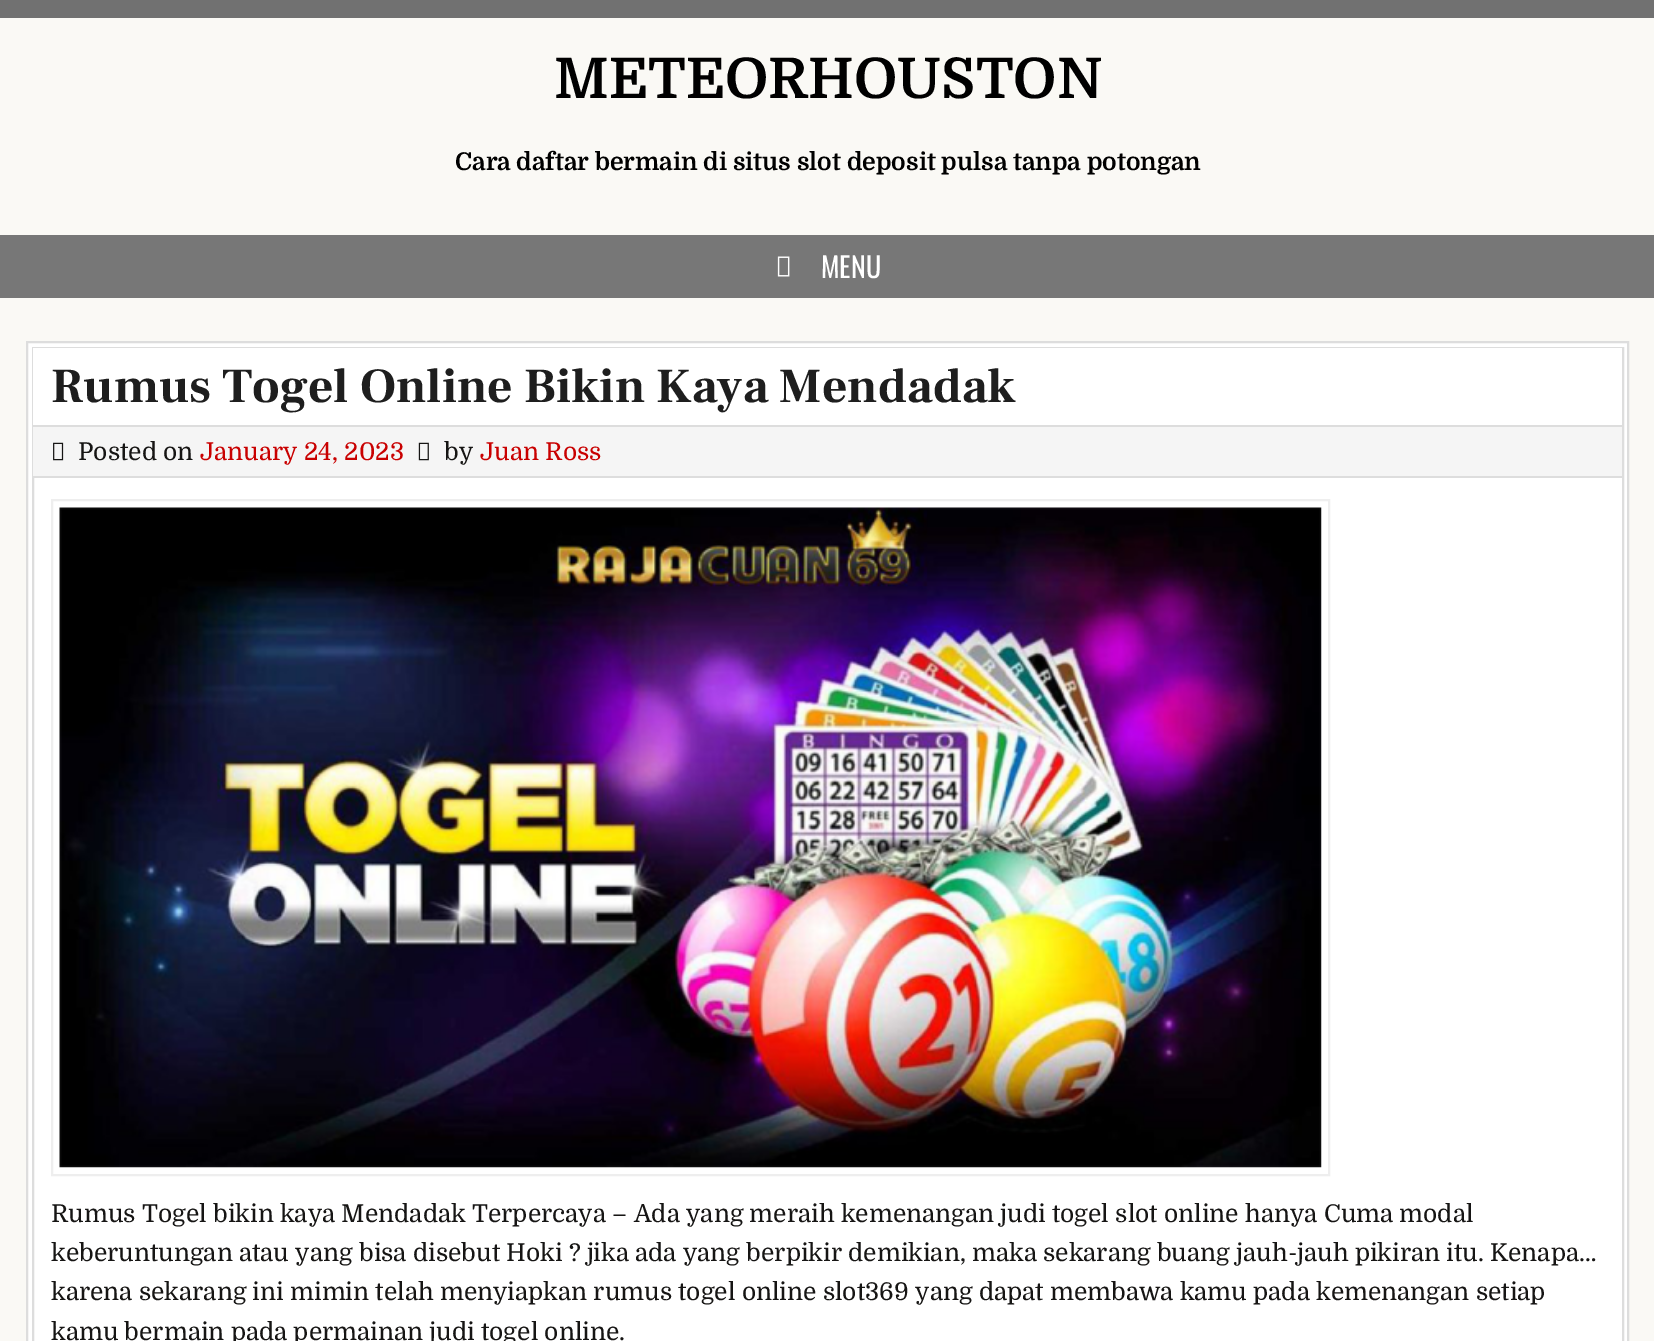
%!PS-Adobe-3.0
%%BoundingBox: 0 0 1654 1341
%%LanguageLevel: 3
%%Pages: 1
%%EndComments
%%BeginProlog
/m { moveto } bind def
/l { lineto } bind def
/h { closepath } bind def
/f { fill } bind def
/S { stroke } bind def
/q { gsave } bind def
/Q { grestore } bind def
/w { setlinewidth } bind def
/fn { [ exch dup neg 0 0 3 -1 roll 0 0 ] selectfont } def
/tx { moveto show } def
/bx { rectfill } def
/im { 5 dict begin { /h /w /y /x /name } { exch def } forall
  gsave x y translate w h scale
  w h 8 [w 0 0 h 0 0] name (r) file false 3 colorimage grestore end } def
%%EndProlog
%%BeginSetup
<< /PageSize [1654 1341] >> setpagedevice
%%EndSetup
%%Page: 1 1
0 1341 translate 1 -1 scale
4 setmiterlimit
0.443 setgray
0 0 1654 1341 bx
0.98 0.976 0.961 setrgbcolor
0 18 1654 1323 bx
/Domine-Bold 56 fn
0 setgray
(METEORHOUSTON) 554 98 tx
/Domine-Bold 24.5 fn
(Cara daftar bermain di situs slot deposit pulsa tanpa potongan) 455 170 tx
0.467 setgray
0 235 1654 63 bx
(image0.raw) 777 256 13 21 im
/Oswald-Regular 28 fn
1 setgray
(MENU) 821 278 tx
27 342 m 1628 342 l 1628 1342 l 27 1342 l h q f Q
0.867 setgray
2 w
S
33 348 1590 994 rectstroke
1 setgray
33 348 1589 77 bx
0.867 setgray
33 425 1589 2 bx
/FrankRuhlLibre-Bold 49 fn
0.118 setgray
(Rumus Togel Online Bikin Kaya Mendadak) 51 402 tx
0.961 setgray
33 427 1589 49 bx
0.867 setgray
33 476 1589 2 bx
(image1.raw) 53 442 11 19 im
/Domine-Regular 24.5 fn
0.086 0.082 0.078 setrgbcolor
(Posted on) 78 460 tx
0.788 0 0 setrgbcolor
(January 24, 2023) 200 460 tx
(image2.raw) 418 442 11 19 im
0.086 0.082 0.078 setrgbcolor
(by) 444 460 tx
0.788 0 0 setrgbcolor
(Juan Ross) 480 460 tx
0.933 setgray
52 500 1277 675 rectstroke
(image3.raw) 59 507 1263 661 im
0.086 0.082 0.078 setrgbcolor
(Rumus Togel bikin kaya Mendadak Terpercaya – Ada yang meraih kemenangan judi togel slot online hanya Cuma modal) 51 1222 tx
(keberuntungan atau yang bisa disebut Hoki ? jika ada yang berpikir demikian, maka sekarang buang jauh-jauh pikiran itu. Kenapa…) 51 1261 tx
(karena sekarang ini mimin telah menyiapkan rumus togel online slot369 yang dapat membawa kamu pada kemenangan setiap) 51 1300 tx
(kamu bermain pada permainan judi togel online.) 51 1340 tx
showpage
%%EOF
